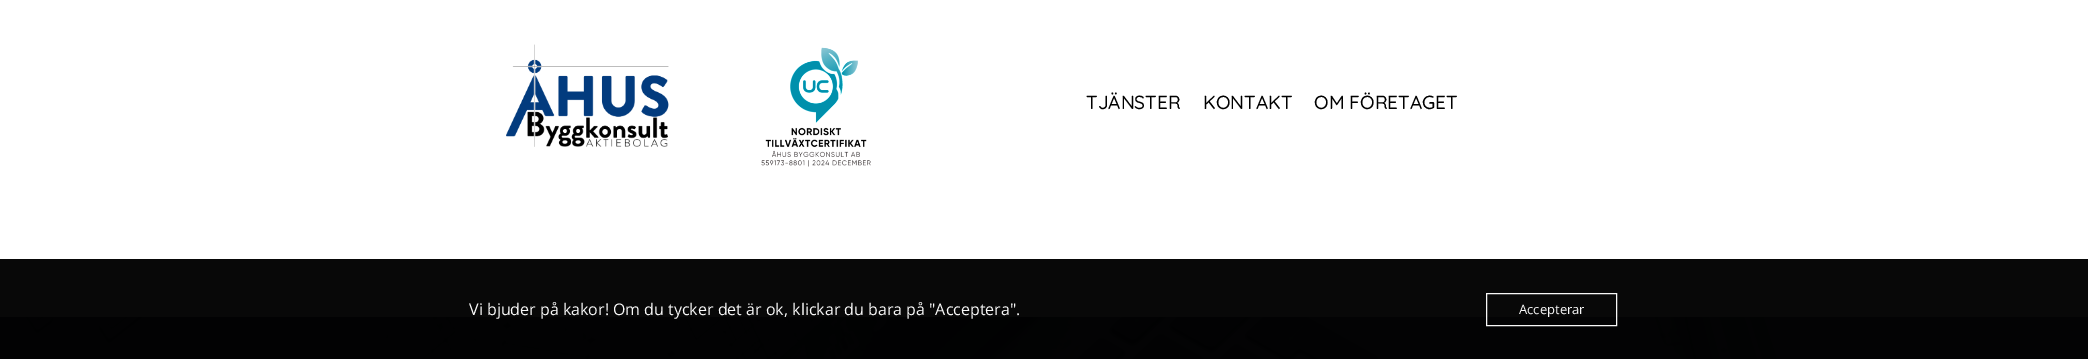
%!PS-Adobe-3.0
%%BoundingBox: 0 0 2088 359
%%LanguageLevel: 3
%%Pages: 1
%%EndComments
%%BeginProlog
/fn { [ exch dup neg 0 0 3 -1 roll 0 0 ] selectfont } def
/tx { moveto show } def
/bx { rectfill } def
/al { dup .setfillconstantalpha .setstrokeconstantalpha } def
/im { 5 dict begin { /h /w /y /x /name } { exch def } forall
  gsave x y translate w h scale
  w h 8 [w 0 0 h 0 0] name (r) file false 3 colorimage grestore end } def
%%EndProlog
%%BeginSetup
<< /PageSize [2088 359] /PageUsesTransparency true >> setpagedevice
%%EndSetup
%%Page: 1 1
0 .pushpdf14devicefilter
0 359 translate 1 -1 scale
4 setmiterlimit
1 setgray
0 0 2088 359 bx
0.031 setgray
0 259 2088 58 bx
(image0.raw) 506 44 163 103 im
(image1.raw) 761 47 110 120 im
/Quicksand-Medium 19 fn
0 setgray
(TJÄNSTER) 1086 109 tx
(KONTAKT) 1203 109 tx
(OM FÖRETAGET) 1314 109 tx
0.008 setgray
0 317 2088 42 bx
(image2.raw) 0 317 2088 42 im
/OpenSans-Regular 16 fn
0.973 setgray
(Vi bjuder på kakor! Om du tycker det är ok, klickar du bara på "Acceptera".) 469 315 tx
0.97 al
1 setgray
1486.5 293.5 130 32 rectstroke
/OpenSans-Regular 13 fn
1 al
0.973 setgray
(Accepterar) 1519 314 tx
.poppdf14devicefilter showpage
%%EOF
